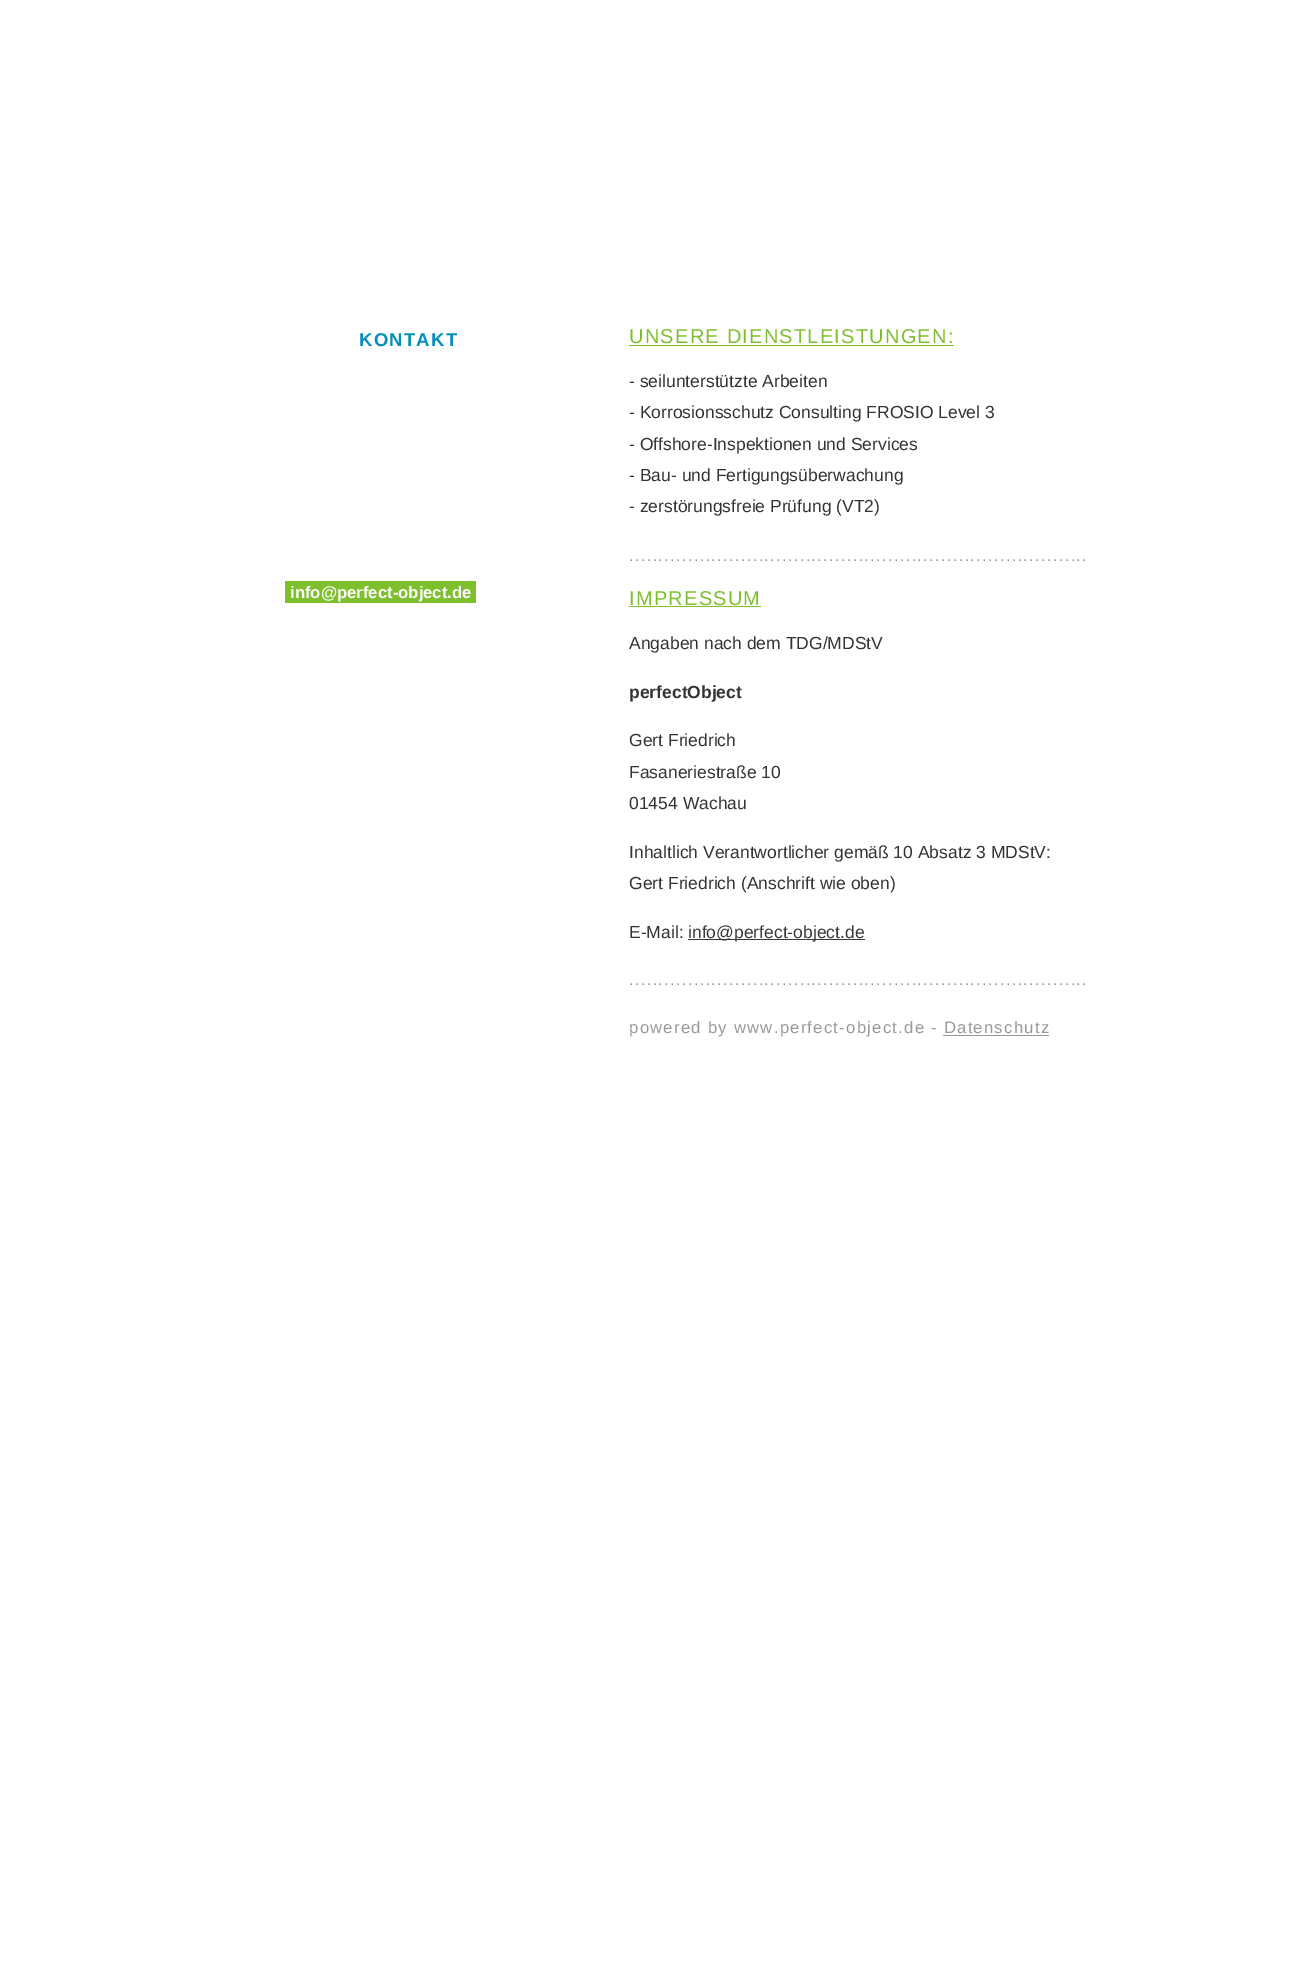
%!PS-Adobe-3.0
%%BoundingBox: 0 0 1302 1980
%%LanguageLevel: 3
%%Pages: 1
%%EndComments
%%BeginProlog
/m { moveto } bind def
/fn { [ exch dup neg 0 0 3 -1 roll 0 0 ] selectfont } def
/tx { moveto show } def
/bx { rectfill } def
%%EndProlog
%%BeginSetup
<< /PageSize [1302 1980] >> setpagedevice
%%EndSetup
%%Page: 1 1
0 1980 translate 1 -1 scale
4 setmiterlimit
1 setgray
0 0 1302 1980 bx
/LiberationSans-Bold 18.5 fn
0.016 0.561 0.733 setrgbcolor
359 346 m 1.25 0 (KONTAKT) ashow
0.49 0.749 0.176 setrgbcolor
285 581 191 22 bx
/LiberationSans-Bold 16.7 fn
1 setgray
(info@perfect-object.de) 290 598 tx
/LiberationSans-Regular 20 fn
0.49 0.749 0.176 setrgbcolor
629 343 m 1.25 0 (UNSERE DIENSTLEISTUNGEN:) ashow
629 345 325 1 bx
/LiberationSans-Regular 17.5 fn
0.2 setgray
(- seilunterstützte Arbeiten) 629 387 tx
(- Korrosionsschutz Consulting FROSIO Level 3) 629 418 tx
(- Offshore-Inspektionen und Services) 629 450 tx
(- Bau- und Fertigungsüberwachung) 629 481 tx
(- zerstörungsfreie Prüfung \(VT2\)) 629 512 tx
/LiberationSans-Regular 16.7 fn
0.6 setgray
629 561 m 1.25 0 (..............................................................................) ashow
/LiberationSans-Regular 20 fn
0.49 0.749 0.176 setrgbcolor
629 605 m 1.25 0 (IMPRESSUM) ashow
629 606 132 1 bx
/LiberationSans-Regular 17.5 fn
0.2 setgray
(Angaben nach dem TDG/MDStV) 629 649 tx
/LiberationSans-Bold 17.5 fn
(perfectObject) 629 698 tx
/LiberationSans-Regular 17.5 fn
(Gert Friedrich) 629 746 tx
(Fasaneriestraße 10) 629 778 tx
(01454 Wachau) 629 809 tx
(Inhaltlich Verantwortlicher gemäß 10 Absatz 3 MDStV:) 629 858 tx
(Gert Friedrich \(Anschrift wie oben\)) 629 889 tx
(E-Mail:) 629 938 tx
0.224 setgray
688 939 177 1 bx
(info@perfect-object.de) 688 938 tx
/LiberationSans-Regular 16.7 fn
0.6 setgray
629 985 m 1.25 0 (..............................................................................) ashow
629 1033 m 1.25 0 (powered by www.perfect-object.de - Datenschutz) ashow
943 1035 106 1 bx
showpage
%%EOF
